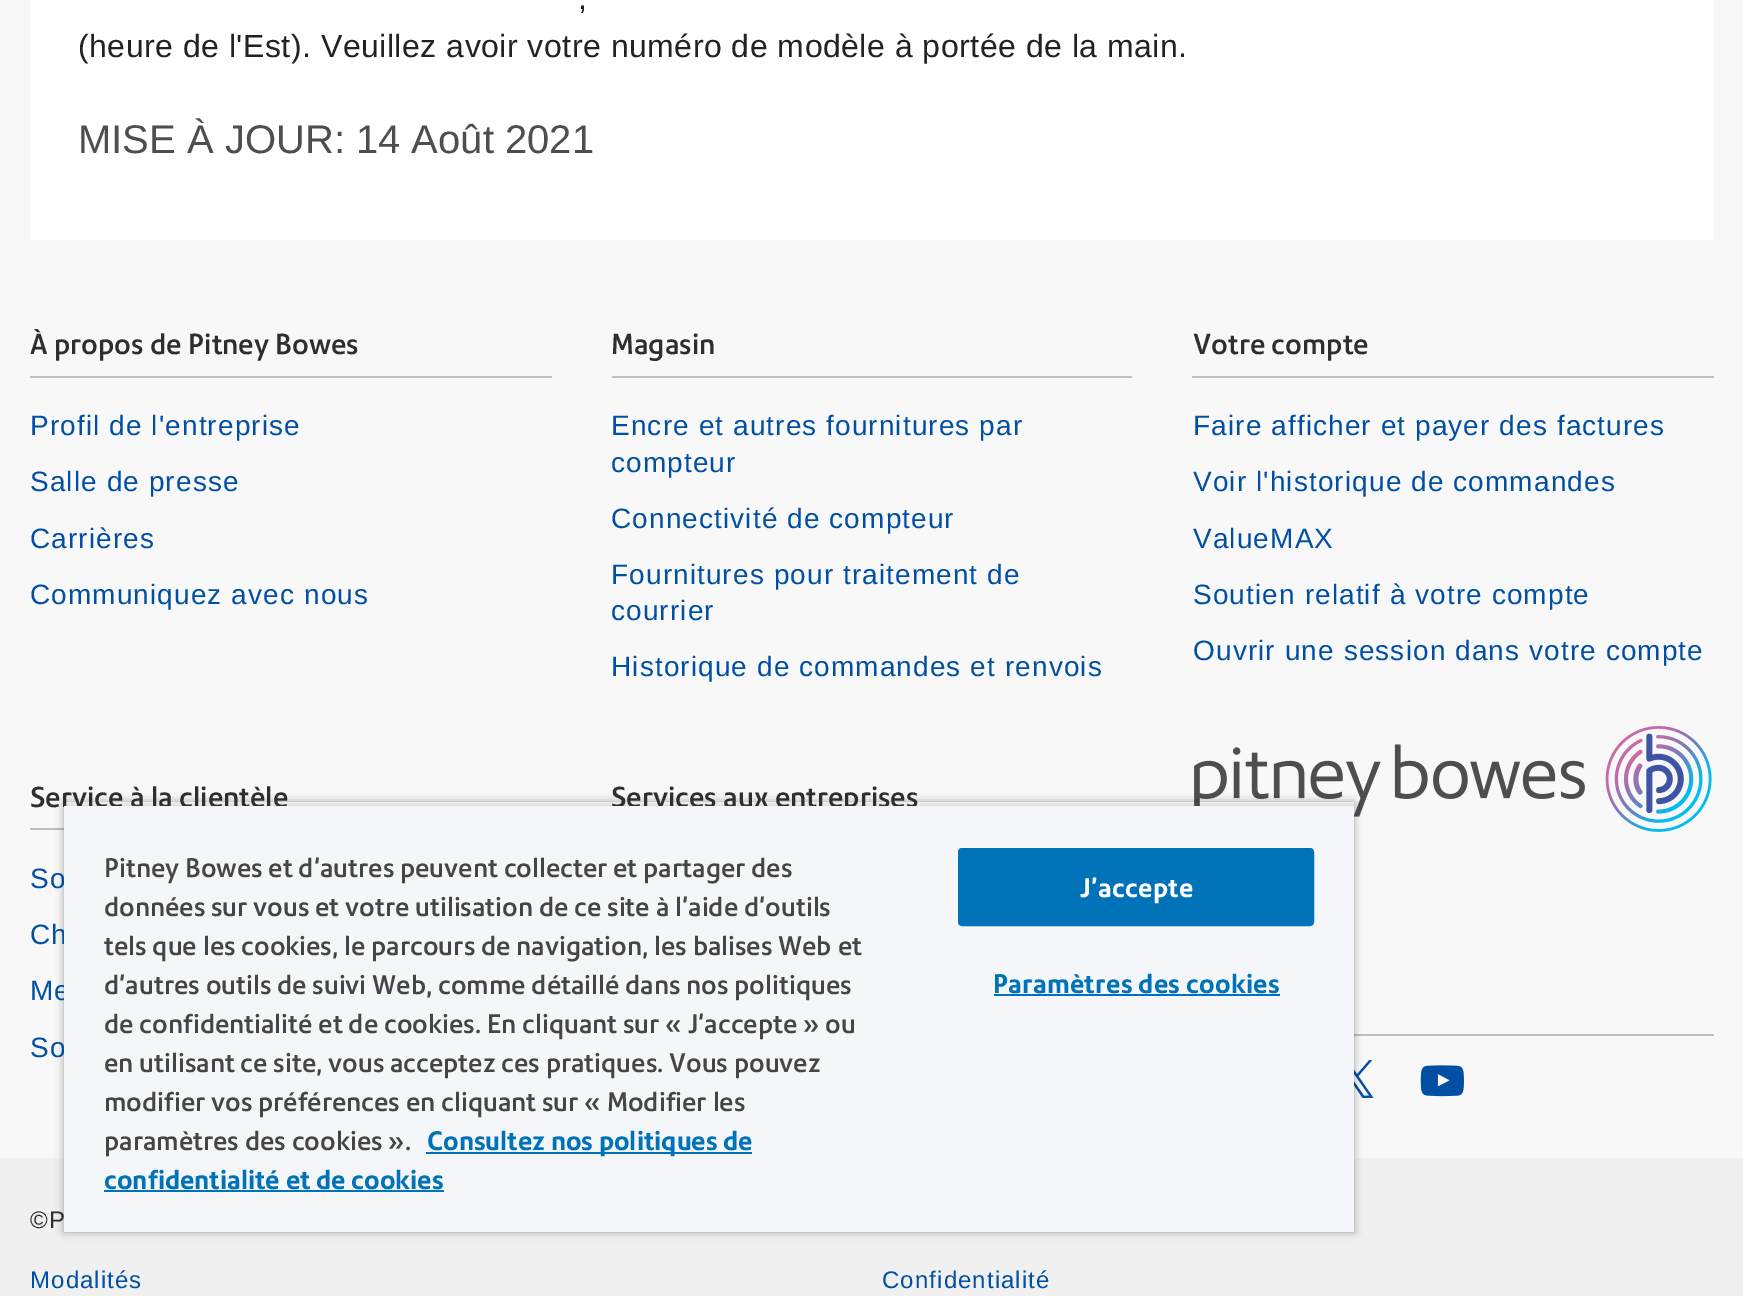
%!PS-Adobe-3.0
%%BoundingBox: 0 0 1743 1296
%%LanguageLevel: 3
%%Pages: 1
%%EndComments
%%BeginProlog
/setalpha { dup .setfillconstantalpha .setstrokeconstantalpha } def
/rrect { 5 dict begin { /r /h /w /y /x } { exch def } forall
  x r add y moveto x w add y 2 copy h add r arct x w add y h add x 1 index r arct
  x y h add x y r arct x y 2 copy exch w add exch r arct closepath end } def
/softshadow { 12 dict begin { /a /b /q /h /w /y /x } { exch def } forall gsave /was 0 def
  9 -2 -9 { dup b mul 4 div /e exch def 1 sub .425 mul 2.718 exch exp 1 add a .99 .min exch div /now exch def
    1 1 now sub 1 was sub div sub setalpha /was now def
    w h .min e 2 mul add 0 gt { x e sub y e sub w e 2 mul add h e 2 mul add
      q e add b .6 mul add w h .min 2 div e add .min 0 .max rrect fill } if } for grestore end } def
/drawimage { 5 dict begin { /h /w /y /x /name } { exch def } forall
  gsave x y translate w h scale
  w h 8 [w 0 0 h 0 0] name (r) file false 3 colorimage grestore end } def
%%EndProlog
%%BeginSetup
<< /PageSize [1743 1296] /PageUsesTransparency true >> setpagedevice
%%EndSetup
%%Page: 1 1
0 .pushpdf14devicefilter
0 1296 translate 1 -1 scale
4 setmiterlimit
0.973 setgray
0 0 1743 1296 rectfill
1 setgray
30 0 1684 240 rectfill
0.749 setgray
30 376 522 2 rectfill
612 376 520 2 rectfill
1192 376 522 2 rectfill
30 828 34 2 rectfill
(images/1.raw) 1194 725 518 107 drawimage
1354 1034 360 2 rectfill
(images/2.raw) 1354 1060 20 38 drawimage
(images/3.raw) 1420 1065 44 32 drawimage
0.941 setgray
0 1158 1743 138 rectfill
gsave
newpath 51 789 moveto 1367 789 lineto 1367 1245 lineto 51 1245 lineto closepath 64 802 moveto 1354 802 lineto 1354 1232 lineto 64 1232 lineto closepath eoclip newpath
0 setgray
64 802 1290 430 0 4 0.35 softshadow
grestore
gsave
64 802 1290 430 rectclip
0 setgray
64 806 1290 426 0 4 0.2 softshadow
grestore
/LiberationSans-Regular [32 0 0 -32 0 0] selectfont
0.133 setgray
578 9 moveto 0.5 0 (,) ashow
78 57 moveto 0.5 0 (\(heure de l'Est\). Veuillez avoir votre numéro de modèle à portée de la main.) ashow
/LiberationSans-Regular [40 0 0 -40 0 0] selectfont
0.306 setgray
78 153 moveto (MISE À JOUR: 14 Août 2021) show
/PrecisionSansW-Medium [28 0 0 -28 0 0] selectfont
0.18 setgray
30 354 moveto (À propos de Pitney Bowes) show
/LiberationSans-Regular [28 0 0 -28 0 0] selectfont
0 0.31 0.639 setrgbcolor
30 435 moveto 1.1 0 (Profil de l'entreprise) ashow
30 491 moveto 1.1 0 (Salle de presse) ashow
30 548 moveto 1.1 0 (Carrières) ashow
30 604 moveto 1.1 0 (Communiquez avec nous) ashow
/PrecisionSansW-Medium [28 0 0 -28 0 0] selectfont
0.18 setgray
611 354 moveto (Magasin) show
/LiberationSans-Regular [28 0 0 -28 0 0] selectfont
0 0.31 0.639 setrgbcolor
611 435 moveto 1.1 0 (Encre et autres fournitures par) ashow
611 472 moveto 1.1 0 (compteur) ashow
611 528 moveto 1.1 0 (Connectivité de compteur) ashow
611 584 moveto 1.1 0 (Fournitures pour traitement de) ashow
611 620 moveto 1.1 0 (courrier) ashow
611 676 moveto 1.1 0 (Historique de commandes et renvois) ashow
/PrecisionSansW-Medium [28 0 0 -28 0 0] selectfont
0.18 setgray
1193 354 moveto (Votre compte) show
/LiberationSans-Regular [28 0 0 -28 0 0] selectfont
0 0.31 0.639 setrgbcolor
1193 435 moveto 1.1 0 (Faire afficher et payer des factures) ashow
1193 491 moveto 1.1 0 (Voir l'historique de commandes) ashow
1193 548 moveto 1.1 0 (ValueMAX) ashow
1193 604 moveto 1.1 0 (Soutien relatif à votre compte) ashow
1193 660 moveto 1.1 0 (Ouvrir une session dans votre compte) ashow
/PrecisionSansW-Medium [28 0 0 -28 0 0] selectfont
0.18 setgray
30 807 moveto (Service à la clientèle) show
/LiberationSans-Regular [28 0 0 -28 0 0] selectfont
0 0.31 0.639 setrgbcolor
30 888 moveto 1.1 0 (So) ashow
30 944 moveto 1.1 0 (Ch) ashow
30 1000 moveto 1.1 0 (Me) ashow
30 1057 moveto 1.1 0 (So) ashow
/PrecisionSansW-Medium [28 0 0 -28 0 0] selectfont
0.18 setgray
611 807 moveto (Services aux entreprises) show
/LiberationSans-Regular [24 0 0 -24 0 0] selectfont
30 1228 moveto 1.1 0 (©P) ashow
0 0.31 0.639 setrgbcolor
30 1288 moveto 1.1 0 (Modalités) ashow
882 1288 moveto 1.1 0 (Confidentialité) ashow
0.961 0.965 0.98 setrgbcolor
64 806 1290 426 rectfill
/PrecisionSansW-Medium [26 0 0 -26 0 0] selectfont
0.271 setgray
104 877 moveto (Pitney Bowes et d'autres peuvent collecter et partager des) show
104 916 moveto (données sur vous et votre utilisation de ce site à l'aide d'outils) show
104 955 moveto (tels que les cookies, le parcours de navigation, les balises Web et) show
104 994 moveto (d'autres outils de suivi Web, comme détaillé dans nos politiques) show
104 1033 moveto (de confidentialité et de cookies. En cliquant sur « J'accepte » ou) show
104 1072 moveto (en utilisant ce site, vous acceptez ces pratiques. Vous pouvez) show
104 1111 moveto (modifier vos préférences en cliquant sur « Modifier les) show
104 1150 moveto (paramètres des cookies ».) show
0 0.447 0.722 setrgbcolor
426 1152 326 2 rectfill
/PrecisionSansW-Bold [26 0 0 -26 0 0] selectfont
427 1150 moveto (Consultez nos politiques de) show
104 1189 moveto (confidentialité et de cookies) show
104 1190 340 2 rectfill
959 849 354 76 3 rrect gsave fill grestore
2 setlinewidth
stroke
1 setgray
1080 897 moveto 0.25 0 (J’accepte) ashow
0 0.447 0.722 setrgbcolor
993 993 moveto 0.25 0 (Paramètres des cookies) ashow
994 994 286 2 rectfill
.poppdf14devicefilter showpage
%%EOF
